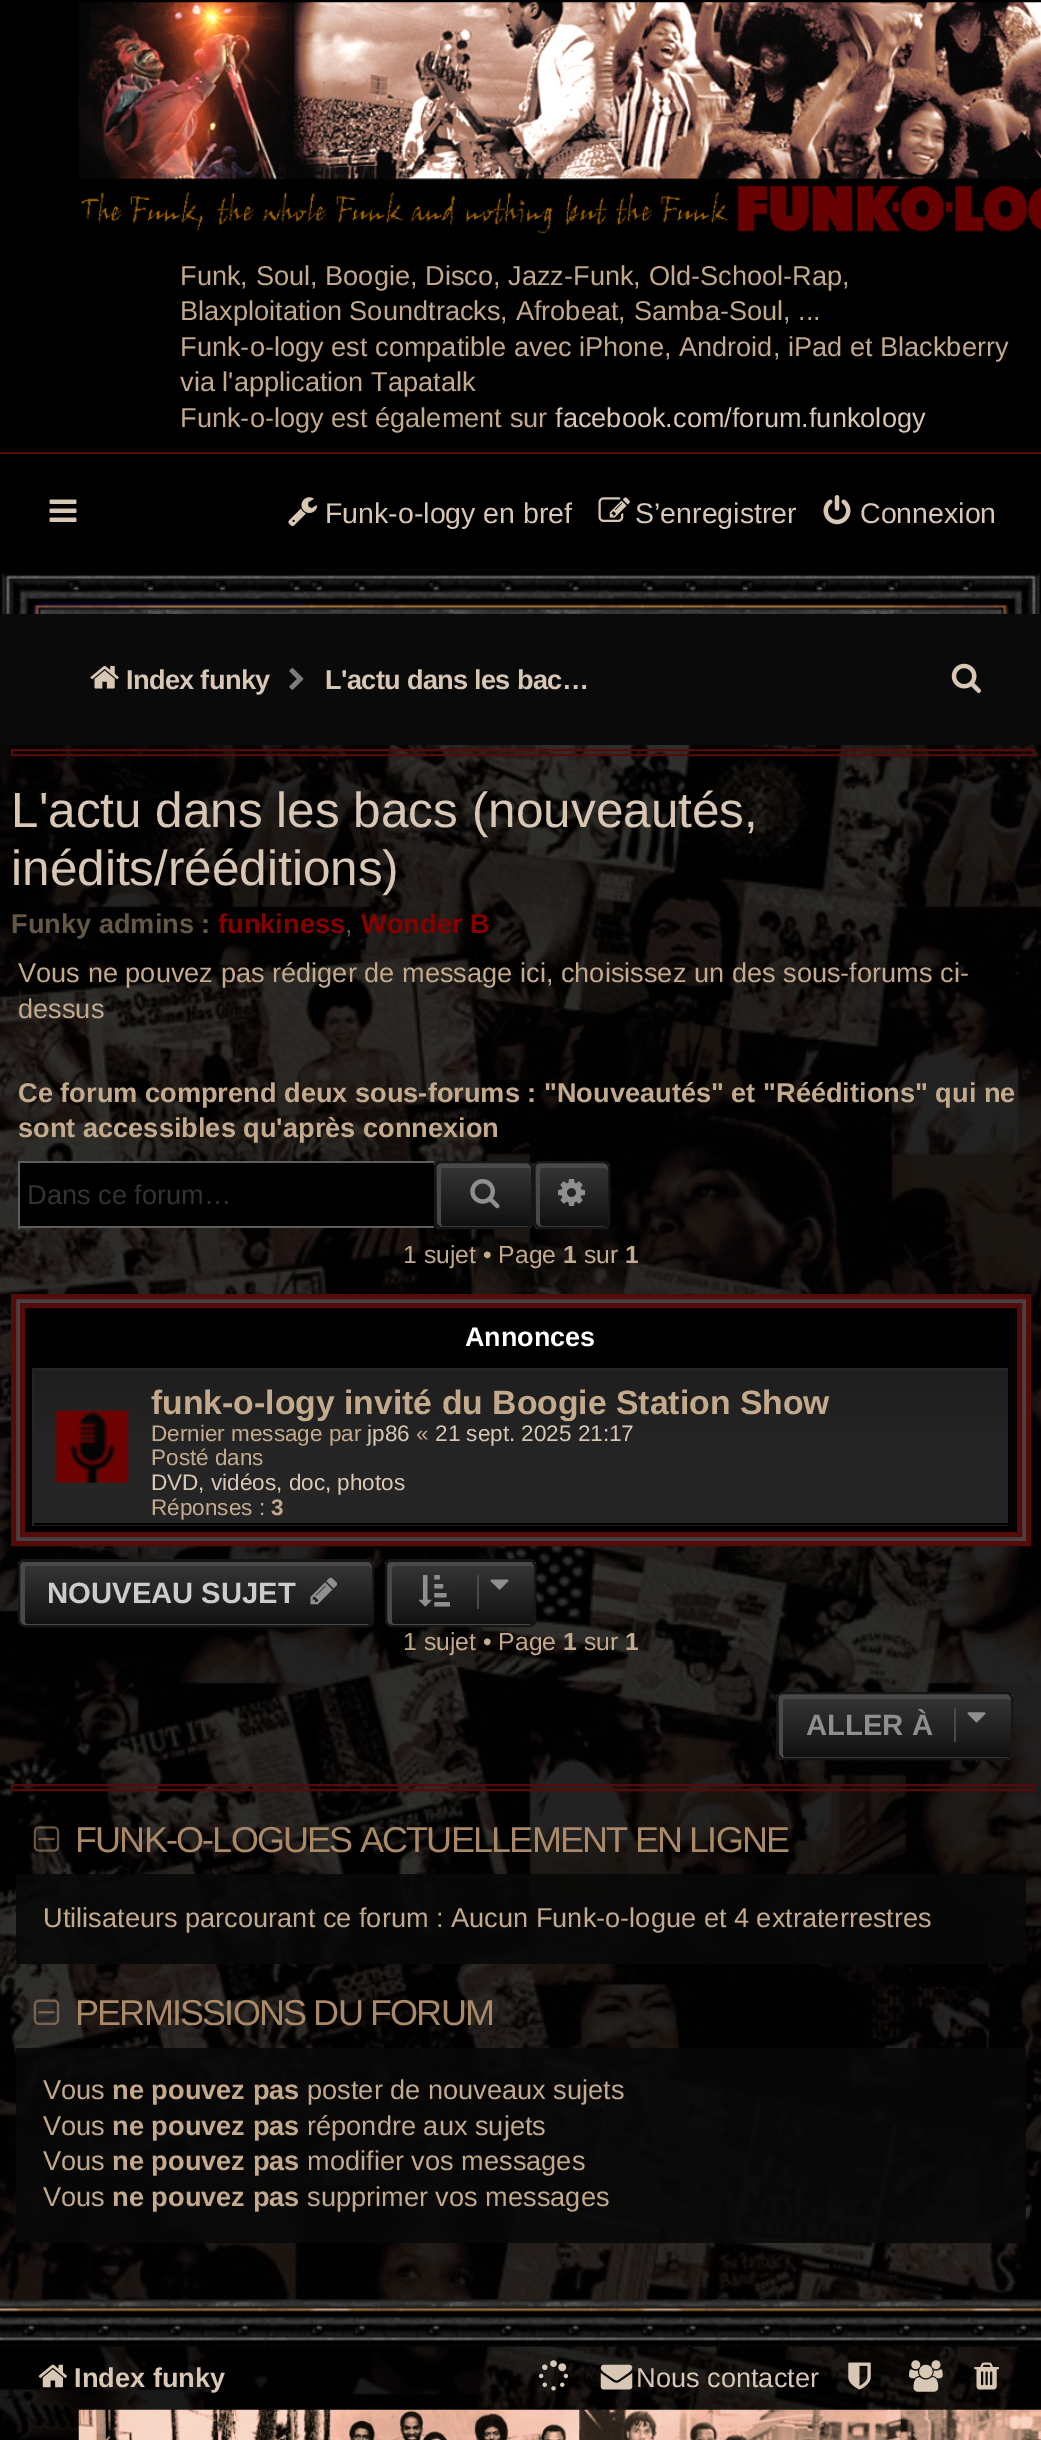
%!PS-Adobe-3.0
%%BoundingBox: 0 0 1041 2440
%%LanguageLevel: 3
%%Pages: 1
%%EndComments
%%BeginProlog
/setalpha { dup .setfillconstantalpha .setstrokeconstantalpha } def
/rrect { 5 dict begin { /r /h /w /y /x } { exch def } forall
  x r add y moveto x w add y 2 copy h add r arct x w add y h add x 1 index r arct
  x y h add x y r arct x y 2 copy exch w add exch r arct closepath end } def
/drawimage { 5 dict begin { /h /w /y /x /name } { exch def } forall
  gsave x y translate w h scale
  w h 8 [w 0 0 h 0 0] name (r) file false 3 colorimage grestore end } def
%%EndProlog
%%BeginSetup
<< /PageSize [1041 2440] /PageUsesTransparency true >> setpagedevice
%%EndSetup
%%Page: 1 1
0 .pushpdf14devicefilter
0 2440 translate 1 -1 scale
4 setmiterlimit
1 setgray
0 0 1041 2440 rectfill
(images/1.raw) 0 569 1041 1871 drawimage
0.85 setalpha
0 setgray
0 569 1041 45 rectfill
1 setalpha
0 0 1041 452 rectfill
(images/2.raw) 78 2 963 232 drawimage
0 454 1041 115 rectfill
0.337 0.043 0.043 setrgbcolor
0 452 1041 2 rectfill
(images/3.raw) 49 499 28 23 drawimage
(images/4.raw) 288 497 30 30 drawimage
(images/5.raw) 598 497 32 25 drawimage
(images/6.raw) 823 495 28 30 drawimage
0.9 setalpha
0 setgray
0 569 1041 45 rectfill
1 setalpha
(images/7.raw) 1 569 1040 45 drawimage
0.039 setgray
0 614 1041 131 rectfill
(images/8.raw) 90 666 29 23 drawimage
(images/9.raw) 289 667 15 23 drawimage
(images/10.raw) 951 663 30 30 drawimage
0.8 setalpha
0 setgray
0 745 1041 1602 rectfill
1 setalpha
(images/11.raw) 0 2299 1041 48 drawimage
0.337 0.043 0.043 setrgbcolor
2 setlinewidth
12 750 1022 5 rectstroke
0 setgray
20 1163 414 63 rectfill
0.365 setgray
18 1161 416 2 rectfill
18 1226 416 2 rectfill
18 1161 2 68 rectfill
gsave
434 1161 99 68 7 rrect clip newpath
gsave newpath 434 1163 moveto 533 1163 lineto 533 1226 lineto 434 1226 lineto closepath clip newpath
<< /ShadingType 2 /ColorSpace /DeviceRGB /Coords [484 1163 484 1226] /Extend [true true] /Function << /FunctionType 2 /Domain [0 1] /C0 [0.216 0.216 0.216] /C1 [0.067 0.067 0.067] /N 1 >> >> shfill grestore
gsave newpath 434 1226 moveto 533 1226 lineto 533 1229 lineto 434 1229 lineto closepath clip newpath
<< /ShadingType 2 /ColorSpace /DeviceRGB /Coords [484 1226 484 1289] /Extend [true true] /Function << /FunctionType 2 /Domain [0 1] /C0 [0.216 0.216 0.216] /C1 [0.067 0.067 0.067] /N 1 >> >> shfill grestore
grestore
0.286 setgray
newpath 443 1168 moveto 529 1168 lineto 530 1168 531 1169 531 1170 curveto 531 1168 lineto 531 1165 529 1163 526 1163 curveto 442 1163 lineto 439 1163 437 1165 437 1168 curveto 437 1221 lineto 437 1224 439 1226 442 1226 curveto 443 1226 lineto 442 1226 441 1225 441 1224 curveto 441 1170 lineto 441 1169 442 1168 443 1168 curveto closepath fill
0.086 setgray
435 1162 97 66 6 rrect stroke
(images/12.raw) 470 1179 30 30 drawimage
gsave
533 1161 77 68 7 rrect clip newpath
gsave newpath 533 1163 moveto 610 1163 lineto 610 1226 lineto 533 1226 lineto closepath clip newpath
<< /ShadingType 2 /ColorSpace /DeviceRGB /Coords [572 1163 572 1226] /Extend [true true] /Function << /FunctionType 2 /Domain [0 1] /C0 [0.216 0.216 0.216] /C1 [0.067 0.067 0.067] /N 1 >> >> shfill grestore
gsave newpath 533 1226 moveto 610 1226 lineto 610 1229 lineto 533 1229 lineto closepath clip newpath
<< /ShadingType 2 /ColorSpace /DeviceRGB /Coords [572 1226 572 1289] /Extend [true true] /Function << /FunctionType 2 /Domain [0 1] /C0 [0.216 0.216 0.216] /C1 [0.067 0.067 0.067] /N 1 >> >> shfill grestore
grestore
0.286 setgray
newpath 542 1168 moveto 605 1168 lineto 606 1168 608 1169 608 1170 curveto 608 1168 lineto 608 1165 606 1163 603 1163 curveto 541 1163 lineto 538 1163 536 1165 536 1168 curveto 536 1221 lineto 536 1224 538 1226 541 1226 curveto 542 1226 lineto 541 1226 540 1225 540 1224 curveto 540 1170 lineto 540 1169 541 1168 542 1168 curveto closepath fill
0.086 setgray
534 1162 75 66 6 rrect stroke
(images/13.raw) 558 1179 27 27 drawimage
0.267 setgray
newpath 13.5 1296.5 moveto 1028.5 1296.5 lineto 1028.5 1543.5 lineto 13.5 1543.5 lineto closepath gsave fill grestore
0.337 0.043 0.043 setrgbcolor
5 setlinewidth
stroke
0 setgray
newpath 22.5 1305.5 moveto 1019.5 1305.5 lineto 1019.5 1534.5 lineto 22.5 1534.5 lineto closepath gsave fill grestore
0.337 0.043 0.043 setrgbcolor
stroke
0.145 setgray
34 1368 974 2 rectfill
gsave newpath 34 1370 moveto 1008 1370 lineto 1008 1523 lineto 34 1523 lineto closepath clip newpath
<< /ShadingType 2 /ColorSpace /DeviceRGB /Coords [521 1370 521 1523] /Extend [true true] /Function << /FunctionType 3 /Domain [0 1] /Functions [<< /FunctionType 2 /Domain [0 1] /C0 [0.118 0.118 0.118] /C1 [0.145 0.145 0.145] /N 1 >> << /FunctionType 2 /Domain [0 1] /C0 [0.145 0.145 0.145] /C1 [0.145 0.145 0.145] /N 1 >>] /Bounds [0.51] /Encode [0 1 0 1] >> >> shfill grestore
gsave newpath 32 1525 moveto 1010 1525 lineto 1010 1526 lineto 32 1526 lineto closepath clip newpath
<< /ShadingType 2 /ColorSpace /DeviceRGB /Coords [521 1523 521 1676] /Extend [true true] /Function << /FunctionType 3 /Domain [0 1] /Functions [<< /FunctionType 2 /Domain [0 1] /C0 [0.118 0.118 0.118] /C1 [0.145 0.145 0.145] /N 1 >> << /FunctionType 2 /Domain [0 1] /C0 [0.145 0.145 0.145] /C1 [0.145 0.145 0.145] /N 1 >>] /Bounds [0.51] /Encode [0 1 0 1] >> >> shfill grestore
0 setgray
1008 1525 2 1 rectfill
0.145 setgray
32 1368 2 158 rectfill
(images/14.raw) 56 1410 73 73 drawimage
gsave
18 1559 356 68 7 rrect clip newpath
gsave newpath 18 1559 moveto 374 1559 lineto 374 1562 lineto 18 1562 lineto closepath clip newpath
<< /ShadingType 2 /ColorSpace /DeviceRGB /Coords [196 1499 196 1562] /Extend [true true] /Function << /FunctionType 2 /Domain [0 1] /C0 [0.216 0.216 0.216] /C1 [0.067 0.067 0.067] /N 1 >> >> shfill grestore
gsave newpath 18 1562 moveto 374 1562 lineto 374 1625 lineto 18 1625 lineto closepath clip newpath
<< /ShadingType 2 /ColorSpace /DeviceRGB /Coords [196 1562 196 1625] /Extend [true true] /Function << /FunctionType 2 /Domain [0 1] /C0 [0.216 0.216 0.216] /C1 [0.067 0.067 0.067] /N 1 >> >> shfill grestore
grestore
0.286 setgray
newpath 27 1566 moveto 369 1566 lineto 370 1566 371 1567 371 1568 curveto 371 1567 lineto 371 1564 369 1562 366 1562 curveto 25 1562 lineto 22 1562 20 1564 20 1567 curveto 20 1620 lineto 20 1623 22 1625 25 1625 curveto 366 1625 lineto 367 1625 368 1625 369 1624 curveto 27 1624 lineto 26 1624 25 1623 25 1622 curveto 25 1568 lineto 25 1567 26 1566 27 1566 curveto closepath fill
0.086 setgray
2 setlinewidth
19 1560 354 66 6 rrect stroke
(images/15.raw) 310 1577 28 28 drawimage
gsave
385 1559 151 68 7 rrect clip newpath
gsave newpath 385 1559 moveto 536 1559 lineto 536 1562 lineto 385 1562 lineto closepath clip newpath
<< /ShadingType 2 /ColorSpace /DeviceRGB /Coords [460 1499 460 1562] /Extend [true true] /Function << /FunctionType 2 /Domain [0 1] /C0 [0.216 0.216 0.216] /C1 [0.067 0.067 0.067] /N 1 >> >> shfill grestore
gsave newpath 385 1562 moveto 536 1562 lineto 536 1625 lineto 385 1625 lineto closepath clip newpath
<< /ShadingType 2 /ColorSpace /DeviceRGB /Coords [460 1562 460 1625] /Extend [true true] /Function << /FunctionType 2 /Domain [0 1] /C0 [0.216 0.216 0.216] /C1 [0.067 0.067 0.067] /N 1 >> >> shfill grestore
grestore
0.286 setgray
newpath 394 1566 moveto 531 1566 lineto 532 1566 533 1567 533 1568 curveto 533 1567 lineto 533 1564 531 1562 528 1562 curveto 392 1562 lineto 389 1562 387 1564 387 1567 curveto 387 1620 lineto 387 1623 389 1625 392 1625 curveto 528 1625 lineto 529 1625 530 1625 531 1624 curveto 394 1624 lineto 393 1624 392 1623 392 1622 curveto 392 1568 lineto 392 1567 393 1566 394 1566 curveto closepath fill
0.086 setgray
386 1560 149 66 6 rrect stroke
(images/16.raw) 419 1575 31 32 drawimage
0.286 setgray
477 1575 2 34 rectfill
(images/17.raw) 490 1579 19 11 drawimage
gsave
776 1692 237 68 7 rrect clip newpath
gsave newpath 776 1694 moveto 1013 1694 lineto 1013 1757 lineto 776 1757 lineto closepath clip newpath
<< /ShadingType 2 /ColorSpace /DeviceRGB /Coords [894 1694 894 1757] /Extend [true true] /Function << /FunctionType 2 /Domain [0 1] /C0 [0.216 0.216 0.216] /C1 [0.067 0.067 0.067] /N 1 >> >> shfill grestore
gsave newpath 776 1757 moveto 1013 1757 lineto 1013 1760 lineto 776 1760 lineto closepath clip newpath
<< /ShadingType 2 /ColorSpace /DeviceRGB /Coords [894 1757 894 1820] /Extend [true true] /Function << /FunctionType 2 /Domain [0 1] /C0 [0.216 0.216 0.216] /C1 [0.067 0.067 0.067] /N 1 >> >> shfill grestore
grestore
newpath 785 1699 moveto 1008 1699 lineto 1009 1699 1010 1700 1010 1701 curveto 1010 1699 lineto 1010 1696 1008 1694 1005 1694 curveto 784 1694 lineto 781 1694 779 1696 779 1699 curveto 779 1752 lineto 779 1755 781 1757 784 1757 curveto 785 1757 lineto 784 1757 783 1756 783 1755 curveto 783 1701 lineto 783 1700 784 1699 785 1699 curveto closepath fill
0.086 setgray
777 1693 235 66 6 rrect stroke
0.286 setgray
954 1708 2 34 rectfill
(images/18.raw) 967 1712 19 11 drawimage
0.337 0.043 0.043 setrgbcolor
12 1785 1022 5 rectstroke
(images/19.raw) 33 1826 27 26 drawimage
0.9 setalpha
0.031 setgray
16 1874 1010 90 rectfill
1 setalpha
(images/20.raw) 33 1999 27 26 drawimage
0.9 setalpha
16 2048 1010 195 rectfill
0.85 setalpha
0 setgray
0 2347 1041 93 rectfill
1 setalpha
(images/21.raw) 38 2364 29 24 drawimage
(images/22.raw) 538 2360 31 31 drawimage
(images/23.raw) 600 2364 33 26 drawimage
(images/24.raw) 848 2362 23 28 drawimage
(images/25.raw) 909 2360 34 32 drawimage
(images/26.raw) 974 2362 25 28 drawimage
(images/27.raw) 78 2409 963 31 drawimage
/LiberationSans-Regular [27.2 0 0 -27.2 0 0] selectfont
0.769 0.667 0.553 setrgbcolor
180 285 moveto (Funk, Soul, Boogie, Disco, Jazz-Funk, Old-School-Rap,) show
180 320 moveto (Blaxploitation Soundtracks, Afrobeat, Samba-Soul, ...) show
180 356 moveto (Funk-o-logy est compatible avec iPhone, Android, iPad et Blackberry) show
180 391 moveto (via l'application Tapatalk) show
180 427 moveto (Funk-o-logy est également sur) show
0.847 0.78 0.706 setrgbcolor
555 427 moveto (facebook.com/forum.funkology) show
/LiberationSans-Regular [28.5 0 0 -28.5 0 0] selectfont
325 523 moveto (Funk-o-logy en bref) show
635 523 moveto (S’enregistrer) show
860 523 moveto (Connexion) show
/LiberationSans-Bold [27.2 0 0 -27.2 0 0] selectfont
126 689 moveto -0.7 0 (Index funky) ashow
325 689 moveto -0.7 0 (L'actu dans les bac…) ashow
/LiberationSans-Regular [49.5 0 0 -49.5 0 0] selectfont
11 827 moveto (L'actu dans les bacs \(nouveautés,) show
11 885 moveto (inédits/rééditions\)) show
/LiberationSans-Bold [27.2 0 0 -27.2 0 0] selectfont
0.388 0.341 0.275 setrgbcolor
11 933 moveto (Funky admins :) show
0.525 0 0 setrgbcolor
218 933 moveto (funkiness) show
/LiberationSans-Regular [27.2 0 0 -27.2 0 0] selectfont
0.388 0.341 0.275 setrgbcolor
345 933 moveto (,) show
/LiberationSans-Bold [27.2 0 0 -27.2 0 0] selectfont
0.525 0 0 setrgbcolor
361 933 moveto (Wonder B) show
/LiberationSans-Regular [27.2 0 0 -27.2 0 0] selectfont
0.769 0.667 0.553 setrgbcolor
18 982 moveto (Vous ne pouvez pas rédiger de message ici, choisissez un des sous-forums ci-) show
18 1018 moveto (dessus) show
/LiberationSans-Bold [27.2 0 0 -27.2 0 0] selectfont
18 1102 moveto (Ce forum comprend deux sous-forums : "Nouveautés" et "Rééditions" qui ne) show
18 1137 moveto (sont accessibles qu'après connexion) show
/LiberationSans-Regular [27.2 0 0 -27.2 0 0] selectfont
0.2 setgray
27 1204 moveto (Dans ce forum…) show
/LiberationSans-Regular [24.75 0 0 -24.75 0 0] selectfont
0.769 0.667 0.553 setrgbcolor
403 1263 moveto (1 sujet • Page) show
/LiberationSans-Bold [24.75 0 0 -24.75 0 0] selectfont
563 1263 moveto (1) show
/LiberationSans-Regular [24.75 0 0 -24.75 0 0] selectfont
584 1263 moveto (sur) show
/LiberationSans-Bold [24.75 0 0 -24.75 0 0] selectfont
625 1263 moveto (1) show
/LiberationSans-Bold [27 0 0 -27 0 0] selectfont
1 setgray
465 1346 moveto (Annonces) show
/LiberationSans-Bold [33.75 0 0 -33.75 0 0] selectfont
0.769 0.667 0.553 setrgbcolor
151 1414 moveto (funk-o-logy invité du Boogie Station Show) show
/LiberationSans-Regular [22.5 0 0 -22.5 0 0] selectfont
151 1441 moveto (Dernier message par) show
0.847 0.78 0.706 setrgbcolor
367 1441 moveto (jp86) show
0.769 0.667 0.553 setrgbcolor
416 1441 moveto («) show
0.847 0.78 0.706 setrgbcolor
435 1441 moveto (21 sept. 2025 21:17) show
0.769 0.667 0.553 setrgbcolor
151 1465 moveto (Posté dans) show
0.847 0.78 0.706 setrgbcolor
151 1490 moveto (DVD, vidéos, doc, photos) show
0.769 0.667 0.553 setrgbcolor
151 1515 moveto (Réponses :) show
/LiberationSans-Bold [22.5 0 0 -22.5 0 0] selectfont
271 1515 moveto (3) show
/LiberationSans-Bold [29.25 0 0 -29.25 0 0] selectfont
0.8 setgray
47 1603 moveto (NOUVEAU SUJET) show
/LiberationSans-Regular [24.75 0 0 -24.75 0 0] selectfont
0.769 0.667 0.553 setrgbcolor
403 1650 moveto (1 sujet • Page) show
/LiberationSans-Bold [24.75 0 0 -24.75 0 0] selectfont
563 1650 moveto (1) show
/LiberationSans-Regular [24.75 0 0 -24.75 0 0] selectfont
584 1650 moveto (sur) show
/LiberationSans-Bold [24.75 0 0 -24.75 0 0] selectfont
625 1650 moveto (1) show
/LiberationSans-Bold [29.25 0 0 -29.25 0 0] selectfont
0.561 setgray
806 1735 moveto (ALLER À) show
/LiberationSans-Regular [36 0 0 -36 0 0] selectfont
0.667 0.537 0.412 setrgbcolor
75 1852 moveto -1.8 0 (FUNK-O-LOGUES ACTUELLEMENT EN LIGNE) ashow
/LiberationSans-Regular [27.2 0 0 -27.2 0 0] selectfont
0.769 0.667 0.553 setrgbcolor
43 1927 moveto (Utilisateurs parcourant ce forum : Aucun Funk-o-logue et 4 extraterrestres) show
/LiberationSans-Regular [36 0 0 -36 0 0] selectfont
0.667 0.537 0.412 setrgbcolor
75 2025 moveto -1.8 0 (PERMISSIONS DU FORUM) ashow
/LiberationSans-Regular [27.2 0 0 -27.2 0 0] selectfont
0.769 0.667 0.553 setrgbcolor
43 2099 moveto (Vous) show
/LiberationSans-Bold [27.2 0 0 -27.2 0 0] selectfont
112 2099 moveto (ne pouvez pas) show
/LiberationSans-Regular [27.2 0 0 -27.2 0 0] selectfont
307 2099 moveto (poster de nouveaux sujets) show
43 2135 moveto (Vous) show
/LiberationSans-Bold [27.2 0 0 -27.2 0 0] selectfont
112 2135 moveto (ne pouvez pas) show
/LiberationSans-Regular [27.2 0 0 -27.2 0 0] selectfont
307 2135 moveto (répondre aux sujets) show
43 2170 moveto (Vous) show
/LiberationSans-Bold [27.2 0 0 -27.2 0 0] selectfont
112 2170 moveto (ne pouvez pas) show
/LiberationSans-Regular [27.2 0 0 -27.2 0 0] selectfont
307 2170 moveto (modifier vos messages) show
43 2206 moveto (Vous) show
/LiberationSans-Bold [27.2 0 0 -27.2 0 0] selectfont
112 2206 moveto (ne pouvez pas) show
/LiberationSans-Regular [27.2 0 0 -27.2 0 0] selectfont
307 2206 moveto (supprimer vos messages) show
/LiberationSans-Bold [27.2 0 0 -27.2 0 0] selectfont
0.847 0.78 0.706 setrgbcolor
74 2387 moveto (Index funky) show
/LiberationSans-Regular [27.2 0 0 -27.2 0 0] selectfont
636 2387 moveto (Nous contacter) show
.poppdf14devicefilter showpage
%%EOF
